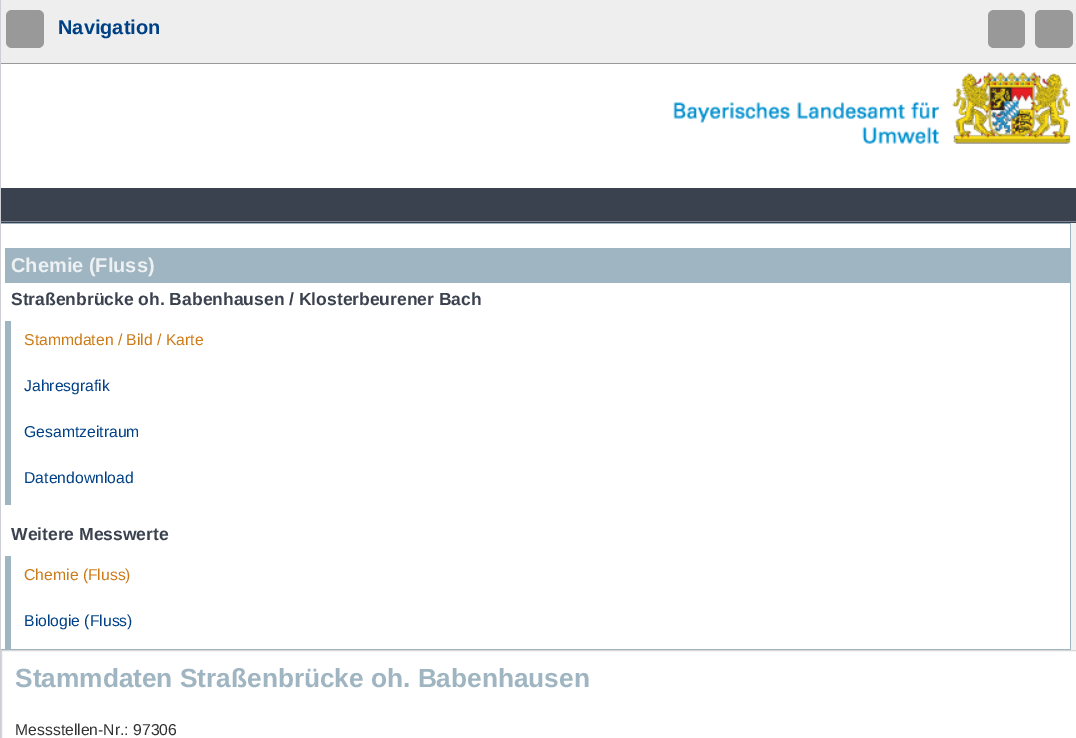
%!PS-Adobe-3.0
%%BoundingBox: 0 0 1076 738
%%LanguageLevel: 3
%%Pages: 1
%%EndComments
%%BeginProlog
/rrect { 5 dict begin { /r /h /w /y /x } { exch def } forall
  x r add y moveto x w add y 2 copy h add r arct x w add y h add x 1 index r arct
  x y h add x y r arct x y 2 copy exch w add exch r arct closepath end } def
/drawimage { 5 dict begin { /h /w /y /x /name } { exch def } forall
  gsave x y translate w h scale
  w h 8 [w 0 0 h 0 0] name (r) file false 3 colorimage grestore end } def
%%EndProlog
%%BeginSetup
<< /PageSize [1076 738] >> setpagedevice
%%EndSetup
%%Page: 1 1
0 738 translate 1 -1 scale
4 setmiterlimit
1 setgray
0 0 1076 738 rectfill
0.808 0.812 0.831 setrgbcolor
0 0 1 738 rectfill
0.933 setgray
1 0 1075 63 rectfill
0.6 setgray
1 63 1075 1 rectfill
6 10 38 38 6 rrect fill
988 10 37 38 6 rrect fill
1035 10 38 38 6 rrect fill
(images/1.raw) 673 72 398 72 drawimage
0.231 0.259 0.31 setrgbcolor
1 188 1075 35 rectfill
0.478 0.51 0.569 setrgbcolor
1 221 1075 1 rectfill
0.949 setgray
1071 223 5 427 rectfill
0.624 0.71 0.757 setrgbcolor
1 223 1070 1 rectfill
1070 223 1 427 rectfill
1 649 1070 1 rectfill
5 248 1065 35 rectfill
5 321 6 184 rectfill
5 556 6 93 rectfill
0.843 setgray
1.5 650.5 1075 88 rectstroke
/LiberationSans-Bold [20 0 0 -20 0 0] selectfont
0 0.255 0.522 setrgbcolor
58 34 moveto (Navigation) show
0.929 0.945 0.953 setrgbcolor
11 272 moveto (Chemie \(Fluss\)) show
/LiberationSans-Bold [17.5 0 0 -17.5 0 0] selectfont
0.231 0.259 0.31 setrgbcolor
11 305 moveto (Straßenbrücke oh. Babenhausen / Klosterbeurener Bach) show
/LiberationSans-Regular [15.75 0 0 -15.75 0 0] selectfont
0.8 0.482 0.09 setrgbcolor
24 345 moveto (Stammdaten / Bild / Karte) show
0 0.255 0.522 setrgbcolor
24 391 moveto (Jahresgrafik) show
24 437 moveto (Gesamtzeitraum) show
24 483 moveto (Datendownload) show
/LiberationSans-Bold [17.5 0 0 -17.5 0 0] selectfont
0.231 0.259 0.31 setrgbcolor
11 540 moveto (Weitere Messwerte) show
/LiberationSans-Regular [15.75 0 0 -15.75 0 0] selectfont
0.8 0.482 0.09 setrgbcolor
24 580 moveto (Chemie \(Fluss\)) show
0 0.255 0.522 setrgbcolor
24 626 moveto (Biologie \(Fluss\)) show
/LiberationSans-Bold [26.25 0 0 -26.25 0 0] selectfont
0.624 0.71 0.757 setrgbcolor
15 687 moveto (Stammdaten Straßenbrücke oh. Babenhausen) show
/LiberationSans-Regular [15.75 0 0 -15.75 0 0] selectfont
0.2 setgray
15 735 moveto (Messstellen-Nr.: 97306) show
showpage
%%EOF
